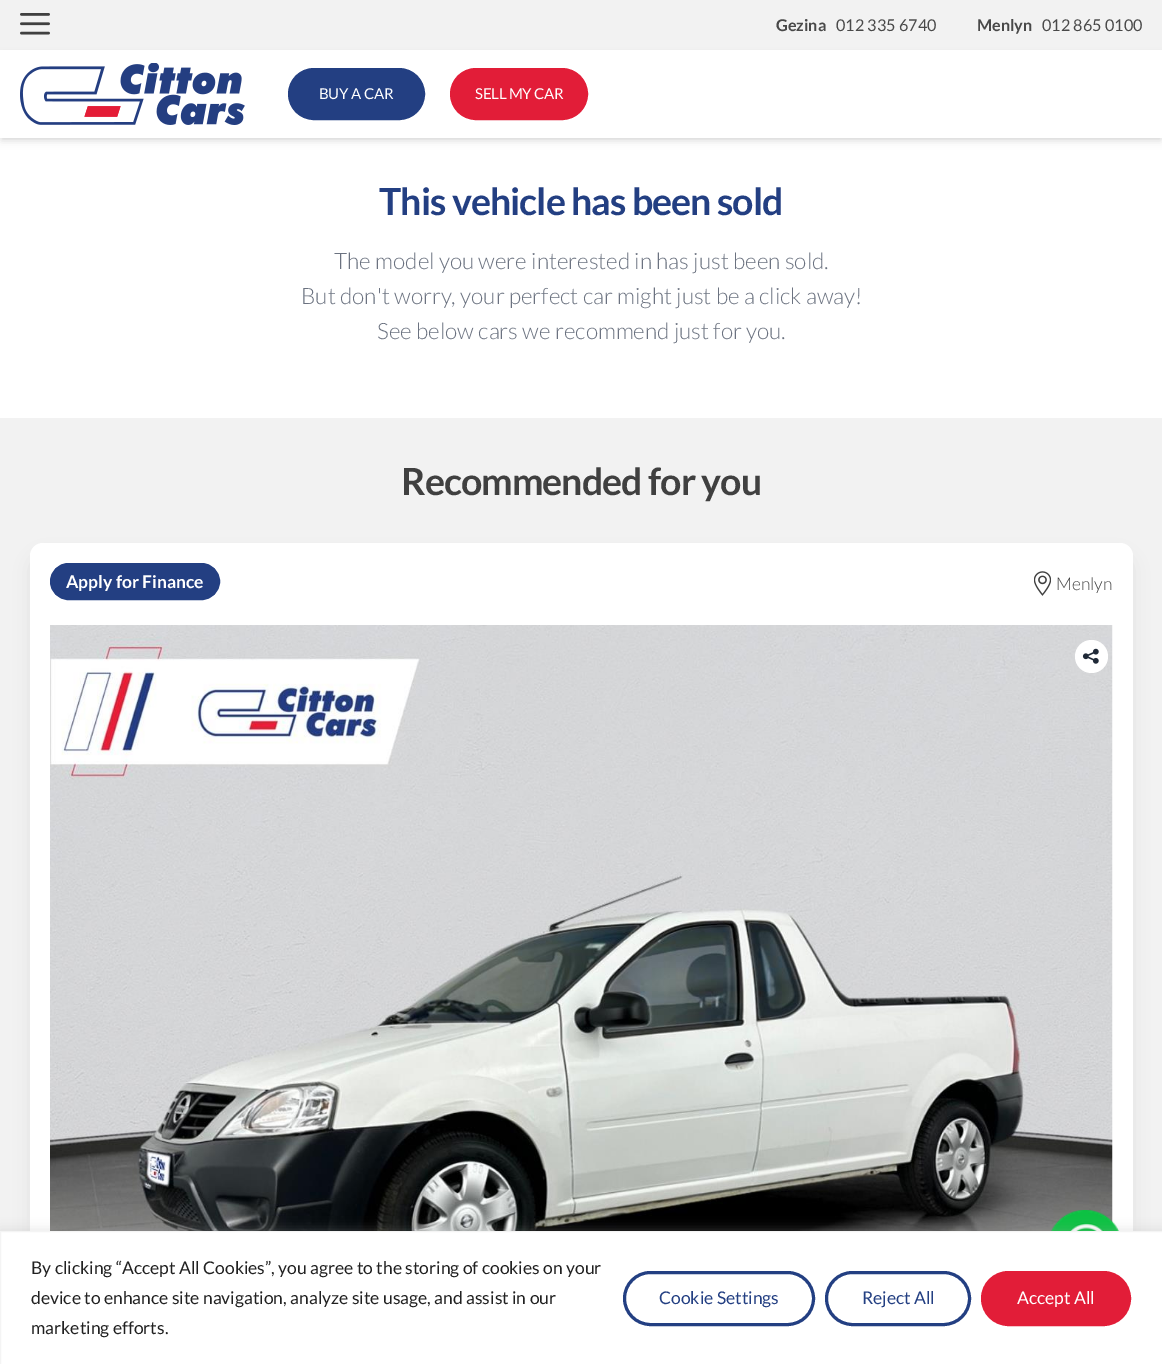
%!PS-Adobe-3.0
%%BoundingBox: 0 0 1162 1364
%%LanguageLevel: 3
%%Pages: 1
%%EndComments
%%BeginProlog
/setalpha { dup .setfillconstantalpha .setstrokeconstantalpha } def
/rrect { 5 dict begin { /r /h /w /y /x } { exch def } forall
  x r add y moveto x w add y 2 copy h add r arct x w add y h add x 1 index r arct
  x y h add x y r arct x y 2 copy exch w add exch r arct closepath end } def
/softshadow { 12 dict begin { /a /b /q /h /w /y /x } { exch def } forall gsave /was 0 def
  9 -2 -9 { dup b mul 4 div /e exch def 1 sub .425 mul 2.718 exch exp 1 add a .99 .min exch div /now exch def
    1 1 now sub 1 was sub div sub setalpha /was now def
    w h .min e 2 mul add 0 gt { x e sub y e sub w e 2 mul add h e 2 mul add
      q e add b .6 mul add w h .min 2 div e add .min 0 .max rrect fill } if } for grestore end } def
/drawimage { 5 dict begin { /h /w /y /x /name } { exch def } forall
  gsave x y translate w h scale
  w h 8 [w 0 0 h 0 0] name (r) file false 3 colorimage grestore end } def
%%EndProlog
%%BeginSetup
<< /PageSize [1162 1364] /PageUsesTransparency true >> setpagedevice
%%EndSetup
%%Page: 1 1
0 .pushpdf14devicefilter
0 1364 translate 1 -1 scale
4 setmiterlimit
0.949 setgray
0 0 1162 1364 rectfill
(images/1.raw) 20 13 30 22 drawimage
1 setgray
0 50 1162 368 rectfill
gsave
newpath 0 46 moveto 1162 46 lineto 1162 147 lineto 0 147 lineto closepath 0 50 moveto 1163 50 lineto 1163 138 lineto 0 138 lineto closepath eoclip newpath
0 setgray
3 55 1157 83 0 2.5 0.1 softshadow
grestore
gsave
newpath 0 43 moveto 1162 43 lineto 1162 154 lineto 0 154 lineto closepath 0 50 moveto 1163 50 lineto 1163 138 lineto 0 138 lineto closepath eoclip newpath
0 setgray
1 56 1160 85 0 4 0.1 softshadow
grestore
(images/2.raw) 20 63 225 62 drawimage
0.137 0.247 0.51 setrgbcolor
289.5 69.5 134 49 24.5 rrect gsave fill grestore
3 setlinewidth
stroke
0.886 0.114 0.22 setrgbcolor
451.5 69.5 135 49 24.5 rrect gsave fill grestore
stroke
0 setgray
34 559 1095 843 9 9.5 0.1 softshadow
1 setgray
30 543 1103 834 13 rrect fill
0.137 0.247 0.51 setrgbcolor
50.5 563.5 169 36 18 rrect gsave fill grestore
1 setlinewidth
stroke
(images/3.raw) 1034 571 17 25 drawimage
(images/4.raw) 50 625 1063 606 drawimage
1 setgray
newpath 1091.5 656.5 16.5 0 360 arc closepath fill
(images/5.raw) 1082 648 17 16 drawimage
(images/6.raw) 1051 1210 69 21 drawimage
0.675 0.671 0.671 setrgbcolor
0 1230 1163 134 0 6 0.3 softshadow
1 setgray
newpath 0.5 1231.5 moveto 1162.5 1231.5 lineto 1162.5 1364.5 lineto 0.5 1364.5 lineto closepath gsave fill grestore
0.957 setgray
stroke
0.137 0.247 0.51 setrgbcolor
3 setlinewidth
624.5 1272.5 189 52 26 rrect stroke
826.5 1272.5 143 52 26 rrect stroke
0.886 0.114 0.22 setrgbcolor
982.5 1272.5 147 52 26 rrect gsave fill grestore
stroke
/Lato-Bold [16.25 0 0 -16.25 0 0] selectfont
0.286 setgray
776 31 moveto (Gezina) show
/Lato-Regular [16.25 0 0 -16.25 0 0] selectfont
836 31 moveto (012 335 6740) show
/Lato-Bold [16.25 0 0 -16.25 0 0] selectfont
977 31 moveto (Menlyn) show
/Lato-Regular [16.25 0 0 -16.25 0 0] selectfont
1042 31 moveto (012 865 0100) show
/Lato-Regular [15 0 0 -15 0 0] selectfont
1 setgray
319 99 moveto -0.25 0 (BUY A CAR) ashow
475 99 moveto -0.25 0 (SELL MY CAR) ashow
/Lato-Bold [37.5 0 0 -37.5 0 0] selectfont
0.137 0.247 0.51 setrgbcolor
379 215 moveto -0.95 0 (This vehicle has been sold) ashow
/Lato-Light [22.5 0 0 -22.5 0 0] selectfont
0.42 0.447 0.502 setrgbcolor
334 269 moveto (The model you were interested in has just been sold.) show
301 304 moveto (But don't worry, your perfect car might just be a click away!) show
377 339 moveto (See below cars we recommend just for you.) show
/Lato-Bold [37.5 0 0 -37.5 0 0] selectfont
0.251 setgray
401 495 moveto -0.95 0 (Recommended for you) ashow
/Lato-Bold [17.5 0 0 -17.5 0 0] selectfont
1 setgray
66 588 moveto (Apply for Finance) show
/Lato-Light [17.5 0 0 -17.5 0 0] selectfont
0.251 setgray
1056 590 moveto (Menlyn) show
/Lato-Regular [17.5 0 0 -17.5 0 0] selectfont
0.129 setgray
31 1274 moveto (By clicking “Accept All Cookies”, you agree to the storing of cookies on your) show
31 1304 moveto (device to enhance site navigation, analyze site usage, and assist in our) show
31 1334 moveto (marketing efforts.) show
0.137 0.247 0.51 setrgbcolor
659 1304 moveto (Cookie Settings) show
862 1304 moveto (Reject All) show
1 setgray
1017 1304 moveto (Accept All) show
.poppdf14devicefilter showpage
%%EOF
